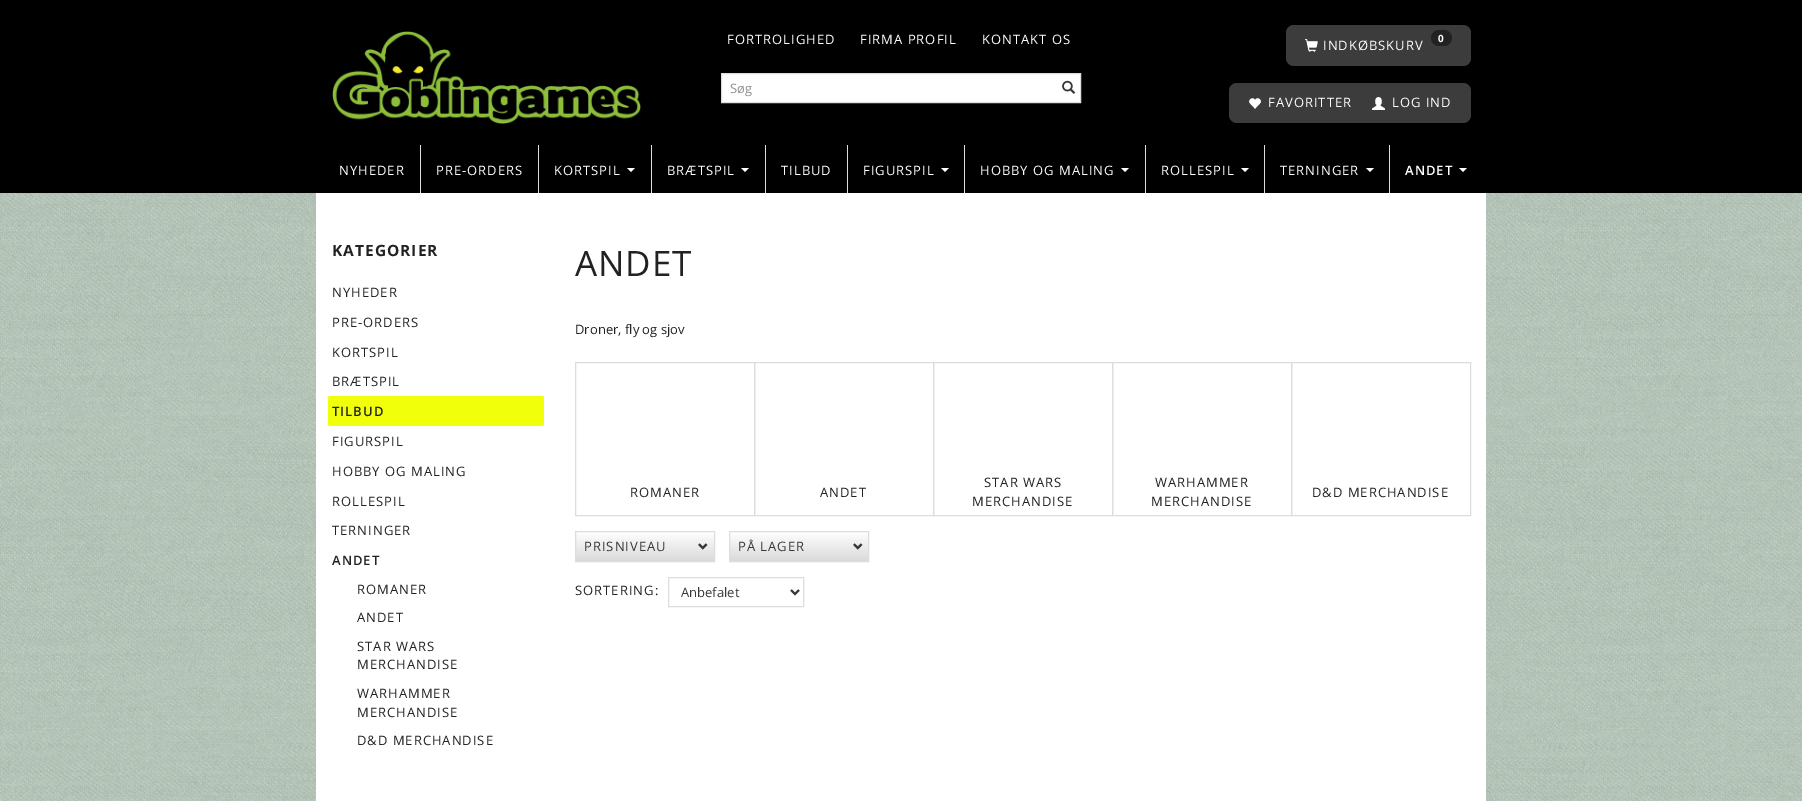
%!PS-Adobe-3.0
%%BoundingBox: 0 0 1802 801
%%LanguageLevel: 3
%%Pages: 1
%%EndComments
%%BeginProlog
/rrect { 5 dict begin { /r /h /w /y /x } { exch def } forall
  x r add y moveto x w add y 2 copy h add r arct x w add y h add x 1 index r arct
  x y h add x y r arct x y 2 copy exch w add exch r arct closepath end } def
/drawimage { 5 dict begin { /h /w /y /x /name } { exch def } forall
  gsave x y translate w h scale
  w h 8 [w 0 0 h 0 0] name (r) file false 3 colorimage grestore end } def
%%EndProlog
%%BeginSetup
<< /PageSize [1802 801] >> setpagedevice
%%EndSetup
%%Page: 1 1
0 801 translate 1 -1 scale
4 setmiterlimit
1 setgray
0 0 1802 801 rectfill
(images/1.raw) 0 193 1802 608 drawimage
0 setgray
0 0 1802 193 rectfill
(images/2.raw) 332 31 309 93 drawimage
1 setgray
newpath 721.5 73.5 moveto 1080.5 73.5 lineto 1080.5 102.5 lineto 721.5 102.5 lineto closepath gsave fill grestore
0.867 setgray
stroke
(images/3.raw) 1062 80 14 14 drawimage
0.235 setgray
1286 25 185 41 8 rrect fill
(images/4.raw) 1305 39 13 13 drawimage
0.133 setgray
1431 30 21 16 8 rrect fill
0.235 setgray
1229 83 242 40 8 rrect fill
(images/5.raw) 1249 98 12 11 drawimage
(images/6.raw) 1372 97 13 13 drawimage
0.867 setgray
420 145 1 48 rectfill
538 145 1 48 rectfill
1 setgray
newpath 627 168 moveto 635 168 lineto 631 172 lineto closepath fill
0.867 setgray
651 145 1 48 rectfill
1 setgray
newpath 741 168 moveto 749 168 lineto 745 172 lineto closepath fill
0.867 setgray
765 145 1 48 rectfill
847 145 1 48 rectfill
1 setgray
newpath 941 168 moveto 949 168 lineto 945 172 lineto closepath fill
0.867 setgray
964 145 1 48 rectfill
1 setgray
newpath 1121 168 moveto 1129 168 lineto 1125 172 lineto closepath fill
0.867 setgray
1145 145 1 48 rectfill
1 setgray
newpath 1241 168 moveto 1249 168 lineto 1245 172 lineto closepath fill
0.867 setgray
1264 145 1 48 rectfill
1 setgray
newpath 1366 168 moveto 1374 168 lineto 1370 172 lineto closepath fill
0.867 setgray
1389 145 1 48 rectfill
1 setgray
newpath 1459 168 moveto 1467 168 lineto 1463 172 lineto closepath fill
316 193 1170 608 rectfill
0.945 1 0.039 setrgbcolor
328 396 216 30 2 rrect fill
0.867 setgray
575.5 362.5 179 153 rectstroke
754.5 362.5 179 153 rectstroke
933.5 362.5 179 153 rectstroke
1112.5 362.5 179 153 rectstroke
1291.5 362.5 179 153 rectstroke
gsave newpath 576 533 moveto 714 533 lineto 714 561 lineto 576 561 lineto closepath clip newpath
<< /ShadingType 2 /ColorSpace /DeviceRGB /Coords [645 531 645 562] /Extend [true true] /Function << /FunctionType 2 /Domain [0 1] /C0 [1 1 1] /C1 [0.851 0.851 0.851] /N 1 >> >> shfill grestore
575.5 531.5 139 30 rectstroke
(images/7.raw) 698 543 10 7 drawimage
gsave newpath 730 533 moveto 868 533 lineto 868 561 lineto 730 561 lineto closepath clip newpath
<< /ShadingType 2 /ColorSpace /DeviceRGB /Coords [799 531 799 562] /Extend [true true] /Function << /FunctionType 2 /Domain [0 1] /C0 [1 1 1] /C1 [0.851 0.851 0.851] /N 1 >> >> shfill grestore
729.5 531.5 139 30 rectstroke
(images/7.raw) 853 543 10 7 drawimage
668.5 577.5 135 29 rectstroke
0.22 setgray
2 setlinewidth
newpath 791 590 moveto 795 594 lineto 799 590 lineto stroke
/OpenSans-Regular [13 0 0 -13 0 0] selectfont
1 setgray
727 44 moveto 1 0 (FORTROLIGHED) ashow
860 44 moveto 1 0 (FIRMA PROFIL) ashow
982 44 moveto 1 0 (KONTAKT OS) ashow
0.569 setgray
730 93 moveto (Søg) show
1 setgray
1323 50 moveto 1 0 (INDKØBSKURV) ashow
/OpenSans-Bold [10 0 0 -10 0 0] selectfont
1438 42 moveto 1 0 (0) ashow
/OpenSans-Regular [13 0 0 -13 0 0] selectfont
1268 107 moveto 1 0 (FAVORITTER) ashow
1392 107 moveto 1 0 (LOG IND) ashow
339 175 moveto 1 0 (NYHEDER) ashow
436 175 moveto 1 0 (PRE-ORDERS) ashow
554 175 moveto 1 0 (KORTSPIL) ashow
667 175 moveto 1 0 (BRÆTSPIL) ashow
781 175 moveto 1 0 (TILBUD) ashow
863 175 moveto 1 0 (FIGURSPIL) ashow
980 175 moveto 1 0 (HOBBY OG MALING) ashow
1161 175 moveto 1 0 (ROLLESPIL) ashow
1280 175 moveto 1 0 (TERNINGER) ashow
/OpenSans-SemiBold [13 0 0 -13 0 0] selectfont
1405 175 moveto 1 0 (ANDET) ashow
/OpenSans-Bold [15.5 0 0 -15.5 0 0] selectfont
0.133 setgray
332 256 moveto 1 0 (KATEGORIER) ashow
/OpenSans-Regular [13 0 0 -13 0 0] selectfont
332 297 moveto 1 0 (NYHEDER) ashow
332 327 moveto 1 0 (PRE-ORDERS) ashow
332 357 moveto 1 0 (KORTSPIL) ashow
332 386 moveto 1 0 (BRÆTSPIL) ashow
/OpenSans-SemiBold [13 0 0 -13 0 0] selectfont
332 416 moveto 1 0 (TILBUD) ashow
/OpenSans-Regular [13 0 0 -13 0 0] selectfont
332 446 moveto 1 0 (FIGURSPIL) ashow
332 476 moveto 1 0 (HOBBY OG MALING) ashow
332 506 moveto 1 0 (ROLLESPIL) ashow
332 535 moveto 1 0 (TERNINGER) ashow
/OpenSans-SemiBold [13 0 0 -13 0 0] selectfont
332 565 moveto 1 0 (ANDET) ashow
/OpenSans-Regular [13 0 0 -13 0 0] selectfont
357 594 moveto 1 0 (ROMANER) ashow
357 622 moveto 1 0 (ANDET) ashow
357 651 moveto 1 0 (STAR WARS) ashow
357 669 moveto 1 0 (MERCHANDISE) ashow
357 698 moveto 1 0 (WARHAMMER) ashow
357 717 moveto 1 0 (MERCHANDISE) ashow
357 745 moveto 1 0 (D&D MERCHANDISE) ashow
/OpenSans-Regular [35 0 0 -35 0 0] selectfont
575 276 moveto 1 0 (ANDET) ashow
/OpenSans-Regular [13 0 0 -13 0 0] selectfont
575 334 moveto (Droner, fly og sjov) show
630 497 moveto 1 0 (ROMANER) ashow
820 497 moveto 1 0 (ANDET) ashow
984 487 moveto 1 0 (STAR WARS) ashow
972 506 moveto 1 0 (MERCHANDISE) ashow
1155 487 moveto 1 0 (WARHAMMER) ashow
1151 506 moveto 1 0 (MERCHANDISE) ashow
1312 497 moveto 1 0 (D&D MERCHANDISE) ashow
0.22 setgray
584 551 moveto 1 0 (PRISNIVEAU) ashow
738 551 moveto 1 0 (PÅ LAGER) ashow
0.133 setgray
575 595 moveto 1 0 (SORTERING:) ashow
0.22 setgray
681 597 moveto (Anbefalet) show
showpage
%%EOF
